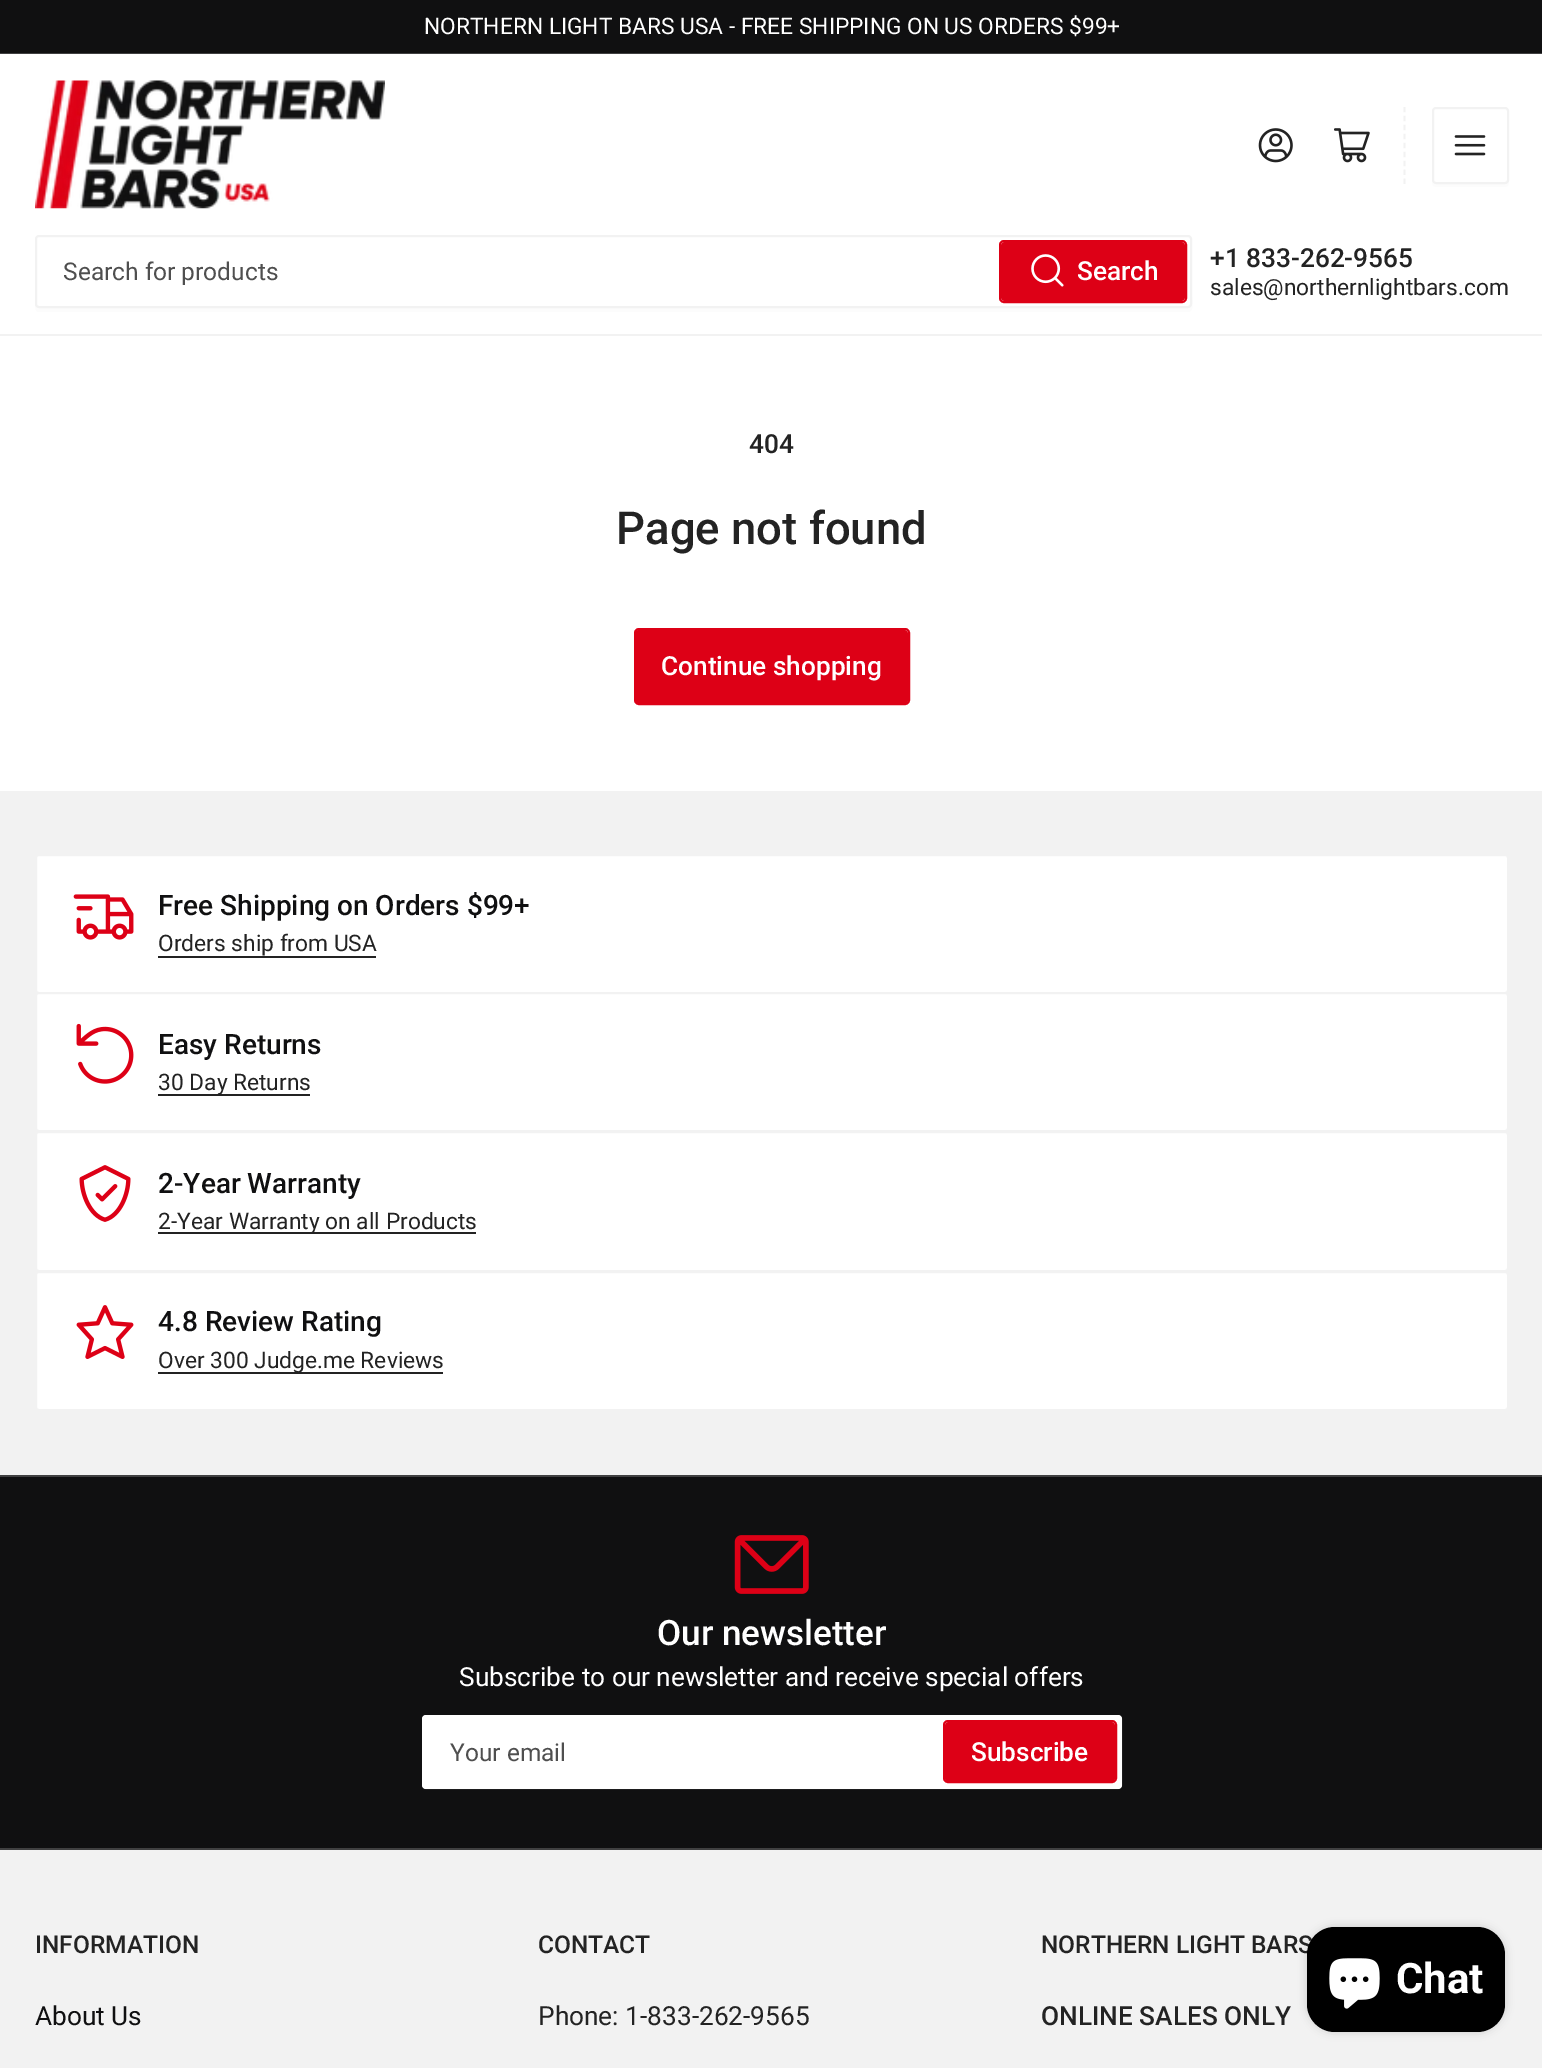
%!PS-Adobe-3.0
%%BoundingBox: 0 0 1542 2068
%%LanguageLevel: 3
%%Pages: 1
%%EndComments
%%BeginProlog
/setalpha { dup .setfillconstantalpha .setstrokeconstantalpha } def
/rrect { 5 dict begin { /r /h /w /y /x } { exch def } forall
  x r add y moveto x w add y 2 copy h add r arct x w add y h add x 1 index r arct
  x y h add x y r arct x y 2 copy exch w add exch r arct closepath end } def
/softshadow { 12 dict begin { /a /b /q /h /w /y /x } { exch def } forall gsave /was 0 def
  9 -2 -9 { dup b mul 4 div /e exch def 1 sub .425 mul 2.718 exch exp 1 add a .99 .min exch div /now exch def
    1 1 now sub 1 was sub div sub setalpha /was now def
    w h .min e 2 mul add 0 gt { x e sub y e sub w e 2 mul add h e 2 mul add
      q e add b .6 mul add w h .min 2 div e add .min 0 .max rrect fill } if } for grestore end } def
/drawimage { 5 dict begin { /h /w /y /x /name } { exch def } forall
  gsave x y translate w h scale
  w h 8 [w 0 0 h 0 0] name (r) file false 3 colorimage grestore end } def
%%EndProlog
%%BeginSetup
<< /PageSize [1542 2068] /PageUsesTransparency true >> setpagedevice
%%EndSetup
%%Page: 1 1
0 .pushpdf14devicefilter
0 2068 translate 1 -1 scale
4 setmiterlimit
1 setgray
0 0 1542 2068 rectfill
0.063 0.063 0.067 setrgbcolor
0 0 1542 53 rectfill
0.251 0.251 0.255 setrgbcolor
0 53 1542 1 rectfill
0.949 setgray
0 334 1542 2 rectfill
(images/1.raw) 35 80 350 129 drawimage
(images/2.raw) 1258 128 35 35 drawimage
(images/3.raw) 1334 128 36 35 drawimage
1.8 setlinewidth
[5.25 3.71] 0 setdash
newpath 1404.5 107 moveto 1404.5 184 lineto stroke
0.988 setgray
newpath 1432 182 moveto 1432 183 lineto 1432 185 1434 187 1436 187 curveto 1505 187 lineto 1507 187 1509 185 1509 183 curveto 1509 114 lineto 1508 112 lineto 1508 180 lineto 1508 182 1507 184 1505 184 curveto 1435 184 lineto 1434 184 1433 183 1432 182 curveto closepath fill
0.949 setgray
2 setlinewidth
[] 0 setdash
1433 108 75 75 3 rrect stroke
(images/4.raw) 1454 135 32 21 drawimage
0.988 setgray
newpath 35 304 moveto 35 307 35 311 38 312 curveto 1188 312 lineto 1195 312 1192 299 1192 297 curveto 1192 241 lineto 1192 304 lineto 1192 306 1190 308 1188 308 curveto 38 308 lineto 37 308 35 306 35 304 curveto closepath fill
0.949 setgray
36 236 1155 71 3 rrect stroke
0.867 0 0.086 setrgbcolor
1000 241 186 61 4 rrect stroke
1001 242 184 59 4 rrect fill
(images/5.raw) 1031 254 33 33 drawimage
635 629 274 75 4 rrect stroke
635 630 273 74 4 rrect fill
0.949 setgray
0 791 1542 684 rectfill
1 setgray
36 855 1472 138 3 rrect gsave fill grestore
0.949 setgray
stroke
(images/6.raw) 73 894 61 46 drawimage
0.137 setgray
158 956 218 2 rectfill
1 setgray
36 993 1472 138 3 rrect gsave fill grestore
0.949 setgray
stroke
(images/7.raw) 76 1023 58 61 drawimage
0.137 setgray
158 1094 152 2 rectfill
1 setgray
36 1132 1472 139 3 rrect gsave fill grestore
0.949 setgray
stroke
(images/8.raw) 79 1165 52 57 drawimage
0.137 setgray
158 1232 318 2 rectfill
1 setgray
36 1272 1472 138 3 rrect gsave fill grestore
0.949 setgray
stroke
(images/9.raw) 76 1305 58 54 drawimage
0.137 setgray
158 1372 285 2 rectfill
0.063 0.063 0.067 setrgbcolor
0 1477 1542 371 rectfill
0.251 0.251 0.255 setrgbcolor
0 1475 1542 2 rectfill
0 1848 1542 2 rectfill
(images/10.raw) 734 1535 75 59 drawimage
1 setgray
422 1715 700 74 4 rrect fill
0.2 setalpha
423 1716 698 72 3 rrect stroke
1 setalpha
0.867 0 0.086 setrgbcolor
944 1721 172 61 4 rrect stroke
945 1722 170 60 4 rrect fill
0.949 setgray
0 1850 1542 218 rectfill
0 setgray
1307 1927 198 105 28 4.5 0.15 softshadow
/Roboto-Regular [22.75 0 0 -22.75 0 0] selectfont
1 setgray
424 34 moveto (NORTHERN LIGHT BARS USA - FREE SHIPPING ON US ORDERS $99+) show
/Roboto-Regular [24.5 0 0 -24.5 0 0] selectfont
0.31 setgray
63 280 moveto (Search for products) show
/Roboto-Medium [26.25 0 0 -26.25 0 0] selectfont
1 setgray
1077 280 moveto (Search) show
0.137 setgray
1210 267 moveto (+1 833-262-9565) show
/Roboto-Regular [22.75 0 0 -22.75 0 0] selectfont
1210 295 moveto (sales@northernlightbars.com) show
/Roboto-Medium [26.25 0 0 -26.25 0 0] selectfont
749 453 moveto (404) show
/Roboto-Medium [45.5 0 0 -45.5 0 0] selectfont
616 544 moveto (Page not found) show
/Roboto-Medium [26.25 0 0 -26.25 0 0] selectfont
1 setgray
661 675 moveto (Continue shopping) show
/Roboto-Medium [28 0 0 -28 0 0] selectfont
0.063 0.063 0.067 setrgbcolor
158 915 moveto (Free Shipping on Orders $99+) show
/Roboto-Regular [22.75 0 0 -22.75 0 0] selectfont
0.137 setgray
158 951 moveto (Orders ship from USA) show
/Roboto-Medium [28 0 0 -28 0 0] selectfont
0.063 0.063 0.067 setrgbcolor
158 1054 moveto (Easy Returns) show
/Roboto-Regular [22.75 0 0 -22.75 0 0] selectfont
0.137 setgray
158 1090 moveto (30 Day Returns) show
/Roboto-Medium [28 0 0 -28 0 0] selectfont
0.063 0.063 0.067 setrgbcolor
158 1193 moveto (2-Year Warranty) show
/Roboto-Regular [22.75 0 0 -22.75 0 0] selectfont
0.137 setgray
158 1229 moveto (2-Year Warranty on all Products) show
/Roboto-Medium [28 0 0 -28 0 0] selectfont
0.063 0.063 0.067 setrgbcolor
158 1331 moveto (4.8 Review Rating) show
/Roboto-Regular [22.75 0 0 -22.75 0 0] selectfont
0.137 setgray
158 1368 moveto (Over 300 Judge.me Reviews) show
/Roboto-Medium [35 0 0 -35 0 0] selectfont
1 setgray
657 1645 moveto (Our newsletter) show
/Roboto-Regular [26.25 0 0 -26.25 0 0] selectfont
459 1686 moveto (Subscribe to our newsletter and receive special offers) show
/Roboto-Regular [24.5 0 0 -24.5 0 0] selectfont
0.31 setgray
450 1761 moveto (Your email) show
/Roboto-Medium [26.25 0 0 -26.25 0 0] selectfont
1 setgray
971 1761 moveto (Subscribe) show
/Roboto-Medium [24.5 0 0 -24.5 0 0] selectfont
0.137 setgray
35 1953 moveto (INFORMATION) show
/Roboto-Regular [26.25 0 0 -26.25 0 0] selectfont
0.063 0.063 0.067 setrgbcolor
35 2025 moveto (About Us) show
/Roboto-Medium [24.5 0 0 -24.5 0 0] selectfont
0.137 setgray
538 1953 moveto (CONTACT) show
/Roboto-Regular [26.25 0 0 -26.25 0 0] selectfont
538 2025 moveto (Phone: 1-833-262-9565) show
/Roboto-Medium [24.5 0 0 -24.5 0 0] selectfont
1041 1953 moveto (NORTHERN LIGHT BARS) show
/Roboto-Medium [26.25 0 0 -26.25 0 0] selectfont
1041 2025 moveto (ONLINE SALES ONLY) show
0 setgray
1307 1927 198 105 28 rrect fill
(images/11.raw) 1329 1958 51 51 drawimage
/Roboto-Bold [42 0 0 -42 0 0] selectfont
1 setgray
1396 1993 moveto (Chat) show
.poppdf14devicefilter showpage
%%EOF
